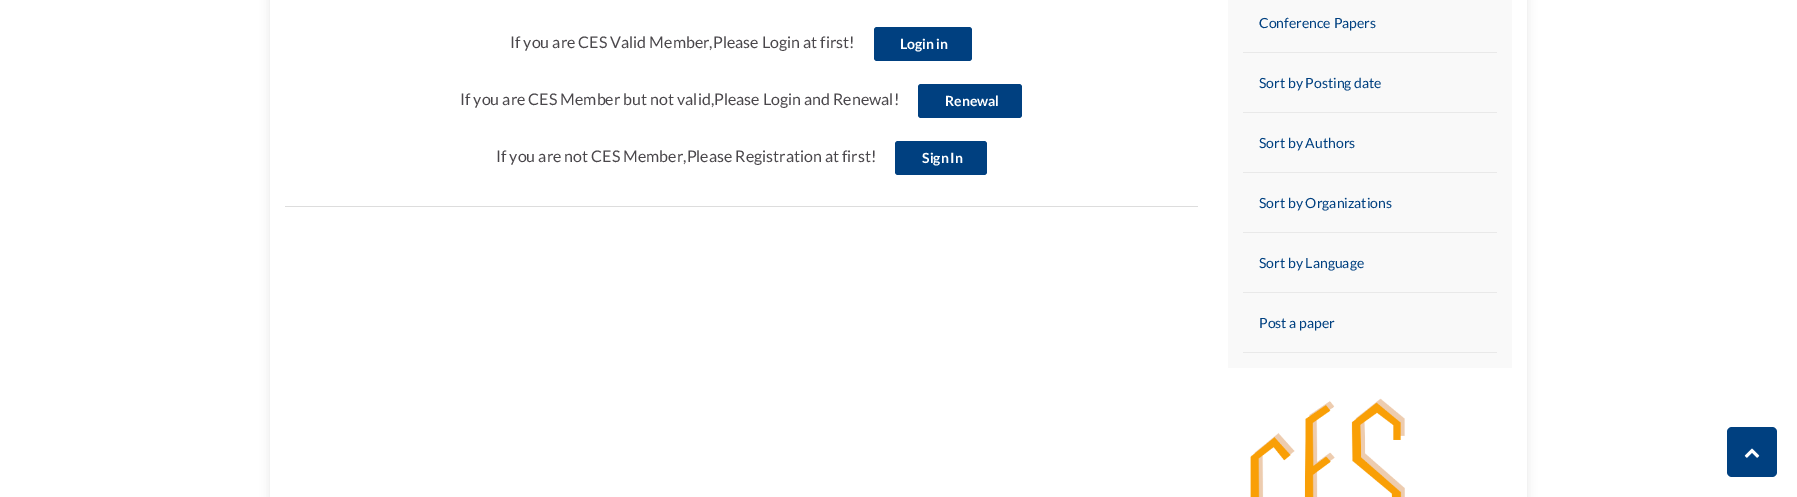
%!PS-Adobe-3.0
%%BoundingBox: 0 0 1797 497
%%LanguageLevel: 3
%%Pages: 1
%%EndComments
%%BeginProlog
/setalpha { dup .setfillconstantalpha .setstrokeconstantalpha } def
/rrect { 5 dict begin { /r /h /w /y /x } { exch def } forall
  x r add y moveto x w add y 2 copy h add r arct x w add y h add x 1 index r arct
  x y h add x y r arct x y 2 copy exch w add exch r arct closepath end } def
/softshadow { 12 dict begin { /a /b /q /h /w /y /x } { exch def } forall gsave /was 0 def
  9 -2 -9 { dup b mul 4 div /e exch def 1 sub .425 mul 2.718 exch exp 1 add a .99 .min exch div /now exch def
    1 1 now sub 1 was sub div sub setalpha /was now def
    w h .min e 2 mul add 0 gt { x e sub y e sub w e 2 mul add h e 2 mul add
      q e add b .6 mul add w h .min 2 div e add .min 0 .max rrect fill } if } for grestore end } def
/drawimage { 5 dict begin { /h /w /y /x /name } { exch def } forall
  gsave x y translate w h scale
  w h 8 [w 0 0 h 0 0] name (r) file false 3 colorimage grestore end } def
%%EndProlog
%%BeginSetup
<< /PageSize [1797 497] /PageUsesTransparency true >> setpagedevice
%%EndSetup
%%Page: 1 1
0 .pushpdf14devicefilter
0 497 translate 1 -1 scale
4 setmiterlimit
1 setgray
0 0 1797 497 rectfill
gsave
newpath 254 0 moveto 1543 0 lineto 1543 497 lineto 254 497 lineto closepath 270 -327 moveto 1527 -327 lineto 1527 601 lineto 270 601 lineto closepath eoclip newpath
0 setgray
270 -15 1257 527 0 5 0.1 softshadow
grestore
0 0.251 0.502 setrgbcolor
874 27 98 34 3 rrect fill
918 84 104 34 3 rrect fill
895 141 92 34 3 rrect fill
0.867 setgray
285 206 913 1 rectfill
0.976 setgray
1228 0 284 368 rectfill
0.914 setgray
1243 52 254 1 rectfill
1243 112 254 1 rectfill
1243 172 254 1 rectfill
1243 232 254 1 rectfill
1243 292 254 1 rectfill
1243 352 254 1 rectfill
(images/1.raw) 1250 398 155 99 drawimage
0 0.251 0.502 setrgbcolor
1727 427 50 50 5 rrect fill
(images/2.raw) 1744 448 16 10 drawimage
/Lato-Regular [16 0 0 -16 0 0] selectfont
0.29 0.278 0.294 setrgbcolor
510 48 moveto (If you are CES Valid Member,Please Login at first!) show
/Lato-Bold [14 0 0 -14 0 0] selectfont
1 setgray
900 49 moveto -1 0 32 (Login in) widthshow
/Lato-Regular [16 0 0 -16 0 0] selectfont
0.29 0.278 0.294 setrgbcolor
460 105 moveto (If you are CES Member but not valid,Please Login and Renewal!) show
/Lato-Bold [14 0 0 -14 0 0] selectfont
1 setgray
945 106 moveto (Renewal) show
/Lato-Regular [16 0 0 -16 0 0] selectfont
0.29 0.278 0.294 setrgbcolor
496 162 moveto (If you are not CES Member,Please Registration at first!) show
/Lato-Bold [14 0 0 -14 0 0] selectfont
1 setgray
922 163 moveto -1 0 32 (Sign In) widthshow
/Lato-Regular [14 0 0 -14 0 0] selectfont
0 0.251 0.502 setrgbcolor
1259 28 moveto (Conference Papers) show
1259 88 moveto (Sort by Posting date) show
1259 148 moveto (Sort by Authors) show
1259 208 moveto (Sort by Organizations) show
1259 268 moveto (Sort by Language) show
1259 328 moveto (Post a paper) show
.poppdf14devicefilter showpage
%%EOF
